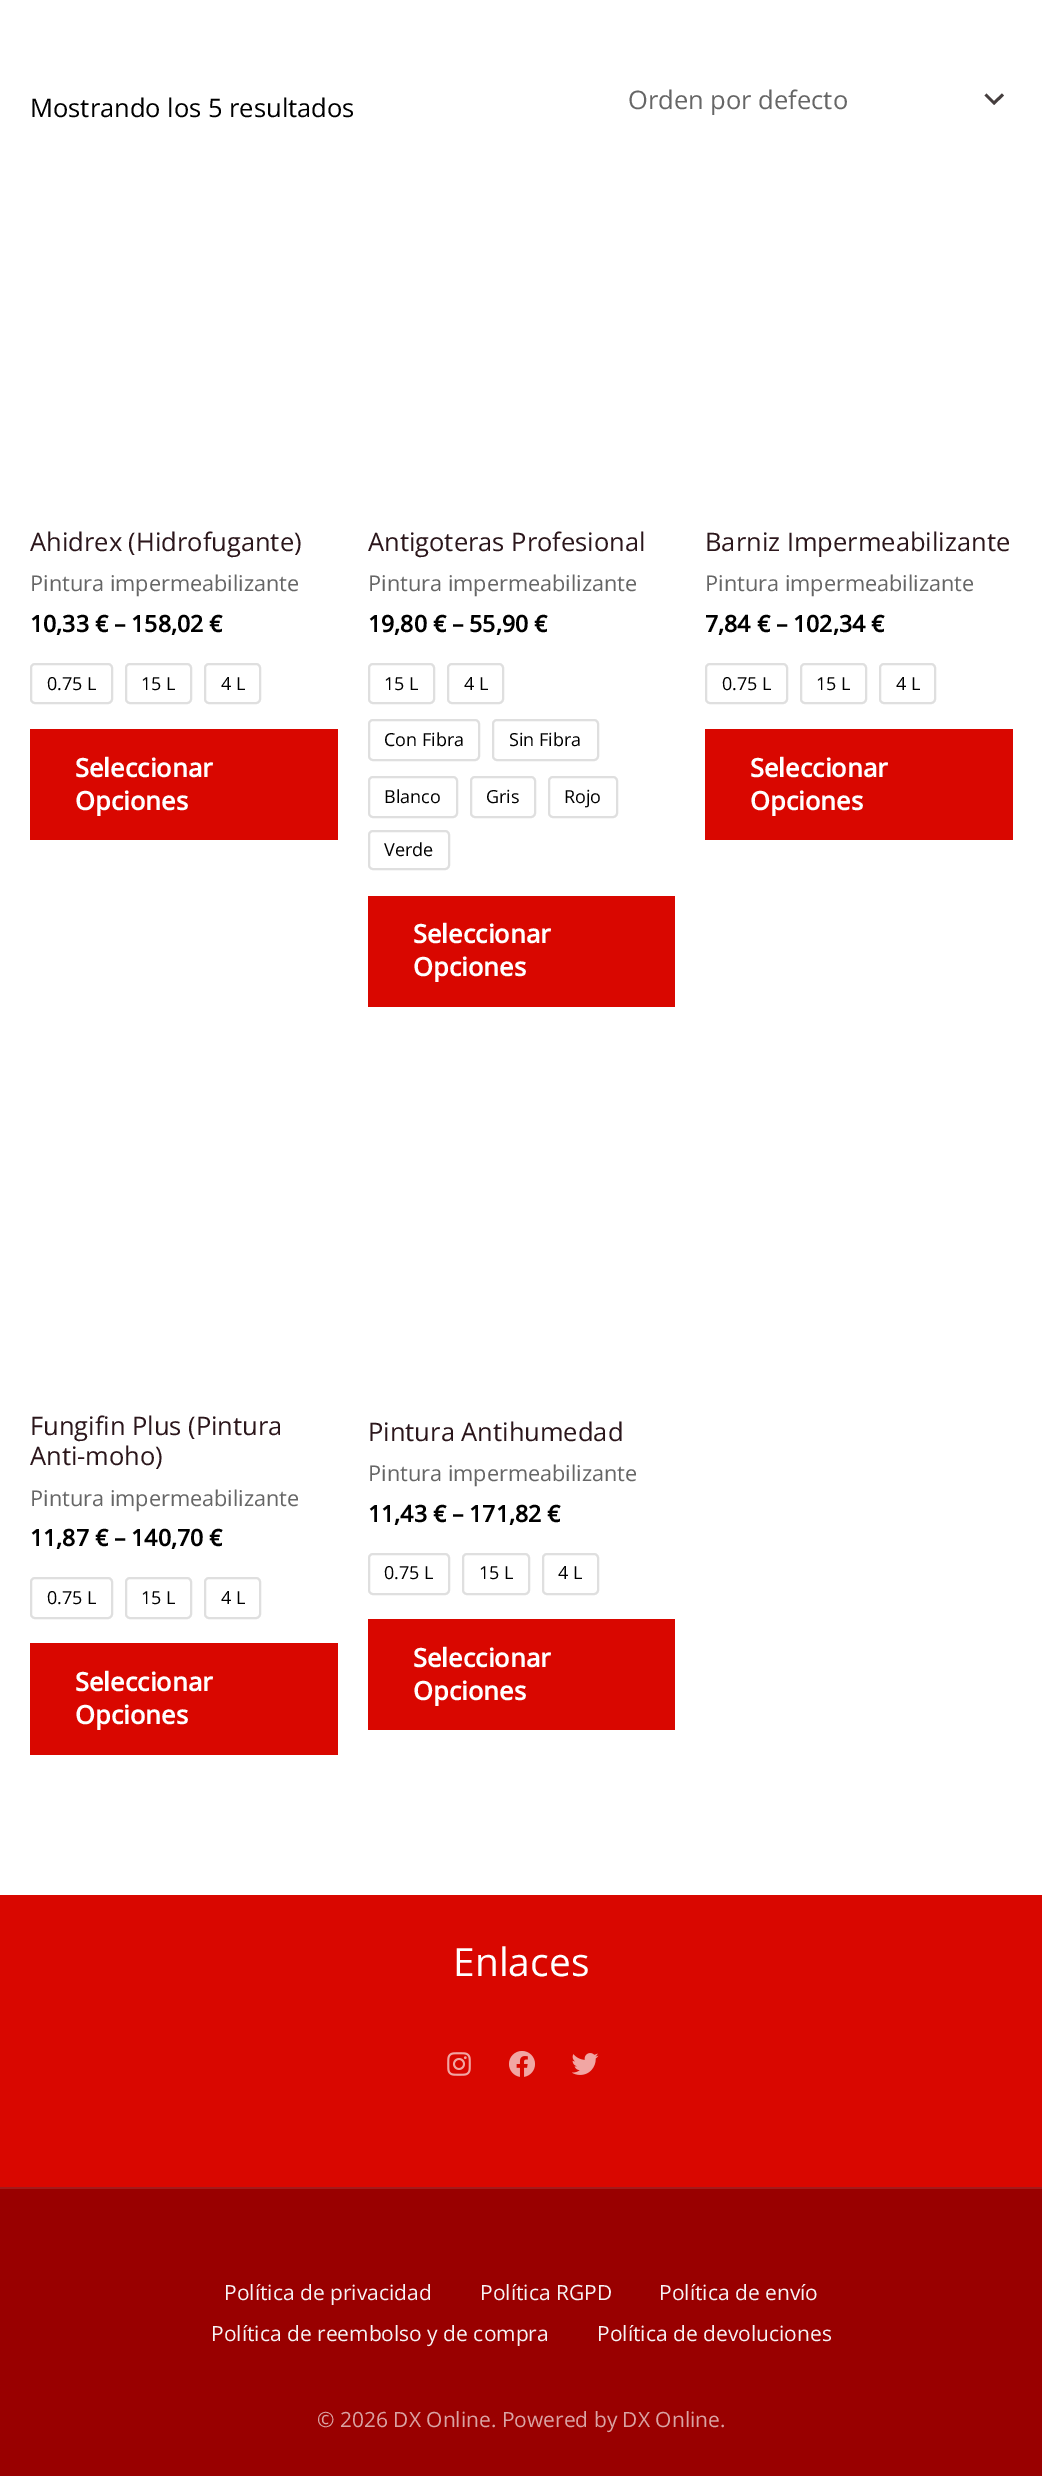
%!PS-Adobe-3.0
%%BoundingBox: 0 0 1042 2476
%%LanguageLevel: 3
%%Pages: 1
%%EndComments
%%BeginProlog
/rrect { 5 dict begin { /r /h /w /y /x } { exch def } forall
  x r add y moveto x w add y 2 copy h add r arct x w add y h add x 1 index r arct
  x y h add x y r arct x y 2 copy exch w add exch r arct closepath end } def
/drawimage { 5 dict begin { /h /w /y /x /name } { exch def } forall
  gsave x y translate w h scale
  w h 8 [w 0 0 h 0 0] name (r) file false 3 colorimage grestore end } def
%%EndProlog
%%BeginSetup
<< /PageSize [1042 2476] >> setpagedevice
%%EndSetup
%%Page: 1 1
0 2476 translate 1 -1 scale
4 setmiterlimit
1 setgray
0 0 1042 2476 rectfill
0.271 0.243 0.243 setrgbcolor
newpath 984.5 95.5 moveto 994 105 lineto 1004 95.5 lineto 1002 93.5 lineto 994 101 lineto 986.5 93.5 lineto closepath fill
0.875 setgray
2 setlinewidth
31 664 81 39 4 rrect stroke
126 664 65 39 4 rrect stroke
205 664 55 39 4 rrect stroke
0.851 0.027 0 setrgbcolor
30 729 308 111 rectfill
0.875 setgray
369 664 65 39 4 rrect stroke
448 664 55 39 4 rrect stroke
369 720 110 40 4 rrect stroke
493 720 105 40 4 rrect stroke
369 777 88 40 4 rrect stroke
471 777 64 40 4 rrect stroke
549 777 68 40 4 rrect stroke
369 831 80 38 4 rrect stroke
0.851 0.027 0 setrgbcolor
368 896 307 111 rectfill
0.875 setgray
706 664 81 39 4 rrect stroke
801 664 65 39 4 rrect stroke
880 664 55 39 4 rrect stroke
0.851 0.027 0 setrgbcolor
705 729 308 111 rectfill
0.875 setgray
31 1578 81 40 4 rrect stroke
126 1578 65 40 4 rrect stroke
205 1578 55 40 4 rrect stroke
0.851 0.027 0 setrgbcolor
30 1643 308 112 rectfill
0.875 setgray
369 1554 80 40 4 rrect stroke
463 1554 66 40 4 rrect stroke
543 1554 55 40 4 rrect stroke
0.851 0.027 0 setrgbcolor
368 1619 307 111 rectfill
0 1895 1042 292 rectfill
(images/1.raw) 447 2052 24 24 drawimage
(images/2.raw) 509 2051 26 26 drawimage
(images/3.raw) 572 2053 27 22 drawimage
0.6 0 0 setrgbcolor
0 2189 1042 287 rectfill
0.639 0.102 0.102 setrgbcolor
0 2187 1042 2 rectfill
/OpenSans-Regular [25.5 0 0 -25.5 0 0] selectfont
0 setgray
30 117 moveto (Mostrando los 5 resultados) show
0.4 setgray
628 109 moveto (Orden por defecto) show
0.169 0.086 0.106 setrgbcolor
30 551 moveto (Ahidrex \(Hidrofugante\)) show
/OpenSans-Regular [21.75 0 0 -21.75 0 0] selectfont
0.4 setgray
30 591 moveto (Pintura impermeabilizante) show
/OpenSans-Bold [23 0 0 -23 0 0] selectfont
0 setgray
30 632 moveto (10,33 € – 158,02 €) show
/OpenSans-Regular [18 0 0 -18 0 0] selectfont
47 690 moveto (0.75 L) show
141 690 moveto (15 L) show
221 690 moveto (4 L) show
/OpenSans-Bold [25.5 0 0 -25.5 0 0] selectfont
1 setgray
75 777 moveto (Seleccionar) show
75 810 moveto (Opciones) show
/OpenSans-Regular [25.5 0 0 -25.5 0 0] selectfont
0.169 0.086 0.106 setrgbcolor
368 551 moveto (Antigoteras Profesional) show
/OpenSans-Regular [21.75 0 0 -21.75 0 0] selectfont
0.4 setgray
368 591 moveto (Pintura impermeabilizante) show
/OpenSans-Bold [23 0 0 -23 0 0] selectfont
0 setgray
368 632 moveto (19,80 € – 55,90 €) show
/OpenSans-Regular [18 0 0 -18 0 0] selectfont
384 690 moveto (15 L) show
464 690 moveto (4 L) show
384 746 moveto (Con Fibra) show
509 746 moveto (Sin Fibra) show
384 803 moveto (Blanco) show
486 803 moveto (Gris) show
564 803 moveto (Rojo) show
384 856 moveto (Verde) show
/OpenSans-Bold [25.5 0 0 -25.5 0 0] selectfont
1 setgray
413 943 moveto (Seleccionar) show
413 976 moveto (Opciones) show
/OpenSans-Regular [25.5 0 0 -25.5 0 0] selectfont
0.169 0.086 0.106 setrgbcolor
705 551 moveto (Barniz Impermeabilizante) show
/OpenSans-Regular [21.75 0 0 -21.75 0 0] selectfont
0.4 setgray
705 591 moveto (Pintura impermeabilizante) show
/OpenSans-Bold [23 0 0 -23 0 0] selectfont
0 setgray
705 632 moveto (7,84 € – 102,34 €) show
/OpenSans-Regular [18 0 0 -18 0 0] selectfont
722 690 moveto (0.75 L) show
816 690 moveto (15 L) show
896 690 moveto (4 L) show
/OpenSans-Bold [25.5 0 0 -25.5 0 0] selectfont
1 setgray
750 777 moveto (Seleccionar) show
750 810 moveto (Opciones) show
/OpenSans-Regular [25.5 0 0 -25.5 0 0] selectfont
0.169 0.086 0.106 setrgbcolor
30 1435 moveto (Fungifin Plus \(Pintura) show
30 1465 moveto (Anti-moho\)) show
/OpenSans-Regular [21.75 0 0 -21.75 0 0] selectfont
0.4 setgray
30 1506 moveto (Pintura impermeabilizante) show
/OpenSans-Bold [23 0 0 -23 0 0] selectfont
0 setgray
30 1546 moveto (11,87 € – 140,70 €) show
/OpenSans-Regular [18 0 0 -18 0 0] selectfont
47 1604 moveto (0.75 L) show
141 1604 moveto (15 L) show
221 1604 moveto (4 L) show
/OpenSans-Bold [25.5 0 0 -25.5 0 0] selectfont
1 setgray
75 1691 moveto (Seleccionar) show
75 1724 moveto (Opciones) show
/OpenSans-Regular [25.5 0 0 -25.5 0 0] selectfont
0.169 0.086 0.106 setrgbcolor
368 1441 moveto (Pintura Antihumedad) show
/OpenSans-Regular [21.75 0 0 -21.75 0 0] selectfont
0.4 setgray
368 1481 moveto (Pintura impermeabilizante) show
/OpenSans-Bold [23 0 0 -23 0 0] selectfont
0 setgray
368 1522 moveto (11,43 € – 171,82 €) show
/OpenSans-Regular [18 0 0 -18 0 0] selectfont
384 1579 moveto (0.75 L) show
479 1579 moveto (15 L) show
558 1579 moveto (4 L) show
/OpenSans-Bold [25.5 0 0 -25.5 0 0] selectfont
1 setgray
413 1667 moveto (Seleccionar) show
413 1700 moveto (Opciones) show
/OpenSans-Regular [39 0 0 -39 0 0] selectfont
453 1976 moveto (Enlaces) show
/OpenSans-Regular [21 0 0 -21 0 0] selectfont
0.969 0.953 0.961 setrgbcolor
224 2300 moveto (Política de privacidad) show
480 2300 moveto (Política RGPD) show
659 2300 moveto (Política de envío) show
211 2341 moveto (Política de reembolso y de compra) show
597 2341 moveto (Política de devoluciones) show
0.855 0.639 0.639 setrgbcolor
317 2427 moveto (© 2026 DX Online. Powered by DX Online.) show
showpage
%%EOF
